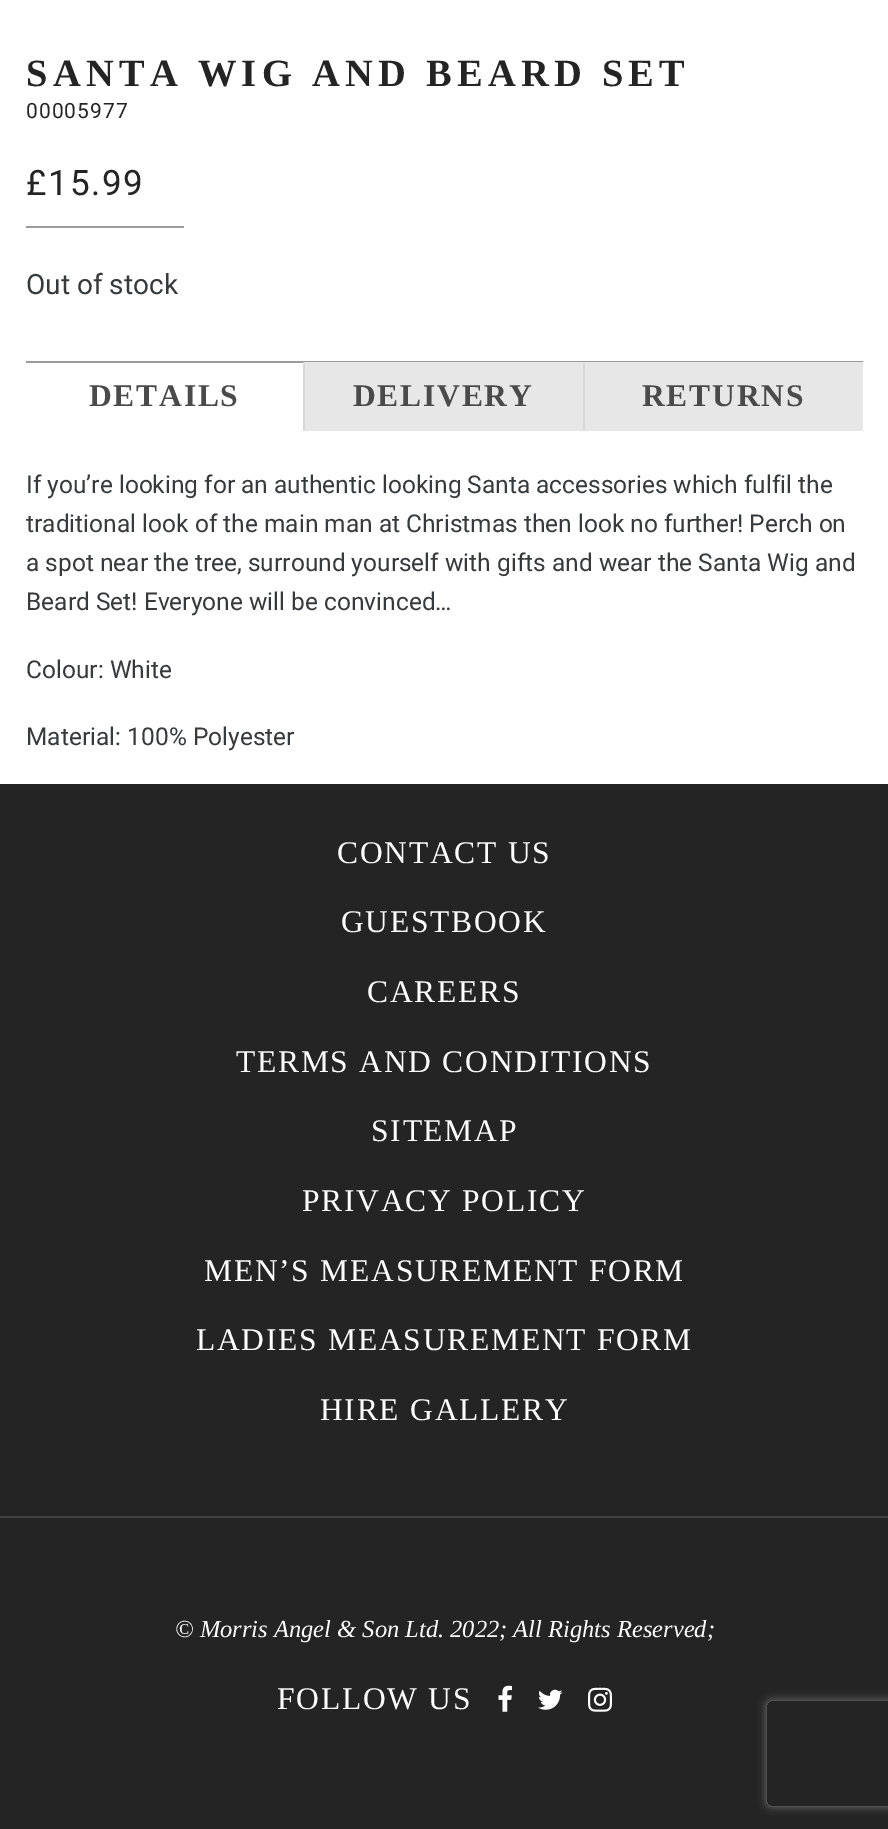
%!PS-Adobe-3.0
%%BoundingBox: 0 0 888 1829
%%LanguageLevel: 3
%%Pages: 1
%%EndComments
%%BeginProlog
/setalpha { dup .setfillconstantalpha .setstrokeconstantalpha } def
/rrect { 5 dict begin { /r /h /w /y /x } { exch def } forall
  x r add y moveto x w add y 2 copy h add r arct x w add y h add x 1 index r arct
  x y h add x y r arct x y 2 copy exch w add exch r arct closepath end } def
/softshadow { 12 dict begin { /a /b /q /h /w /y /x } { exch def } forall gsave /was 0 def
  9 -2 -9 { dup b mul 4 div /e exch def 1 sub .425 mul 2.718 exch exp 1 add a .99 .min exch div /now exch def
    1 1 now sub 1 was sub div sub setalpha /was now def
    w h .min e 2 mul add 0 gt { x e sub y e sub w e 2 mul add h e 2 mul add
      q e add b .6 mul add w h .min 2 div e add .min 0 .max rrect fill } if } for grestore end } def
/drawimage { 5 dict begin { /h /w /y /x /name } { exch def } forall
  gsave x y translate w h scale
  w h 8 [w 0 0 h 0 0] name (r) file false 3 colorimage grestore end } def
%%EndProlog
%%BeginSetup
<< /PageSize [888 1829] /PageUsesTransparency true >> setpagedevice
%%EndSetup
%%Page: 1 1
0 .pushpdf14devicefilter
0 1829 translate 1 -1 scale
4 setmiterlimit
0.141 setgray
0 0 888 1829 rectfill
1 setgray
0 0 888 784 rectfill
0.608 setgray
26 226 158 2 rectfill
26 361 837 2 rectfill
0.847 setgray
303 362 2 69 rectfill
0.906 setgray
305 362 278 69 rectfill
0.847 setgray
583 362 2 69 rectfill
0.906 setgray
585 362 278 69 rectfill
0.255 setgray
0 1516 888 2 rectfill
(images/1.raw) 498 1685 14 27 drawimage
(images/2.raw) 538 1689 25 21 drawimage
(images/3.raw) 588 1687 24 25 drawimage
gsave
newpath 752 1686 moveto 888 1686 lineto 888 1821 lineto 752 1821 lineto closepath 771 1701 moveto 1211 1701 lineto 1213 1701 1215 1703 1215 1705 curveto 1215 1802 lineto 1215 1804 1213 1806 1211 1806 curveto 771 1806 lineto 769 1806 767 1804 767 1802 curveto 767 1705 lineto 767 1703 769 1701 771 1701 curveto closepath eoclip newpath
0.502 setgray
767 1701 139 105 4 4.5 1 softshadow
grestore
/LiberationSerif-Bold [38.5 0 0 -38.5 0 0] selectfont
0.141 setgray
26 86 moveto 5.25 0 (SANTA WIG AND BEARD SET) ashow
/Roboto-Regular [21 0 0 -21 0 0] selectfont
26 118 moveto 1 0 (00005977) ashow
/Roboto-Regular [35 0 0 -35 0 0] selectfont
26 195 moveto 1.75 0 (£15.99) ashow
/Roboto-Regular [28 0 0 -28 0 0] selectfont
0.216 0.227 0.235 setrgbcolor
26 294 moveto (Out of stock) show
/LiberationSerif-Bold [31.5 0 0 -31.5 0 0] selectfont
0.29 setgray
89 406 moveto 1.75 0 (DETAILS) ashow
353 406 moveto 1.75 0 (DELIVERY) ashow
642 406 moveto 1.75 0 (RETURNS) ashow
/Roboto-Regular [24.5 0 0 -24.5 0 0] selectfont
0.216 0.227 0.235 setrgbcolor
26 493 moveto (If you’re looking for an authentic looking Santa accessories which fulfil the) show
26 532 moveto (traditional look of the main man at Christmas then look no further! Perch on) show
26 571 moveto (a spot near the tree, surround yourself with gifts and wear the Santa Wig and) show
26 610 moveto (Beard Set! Everyone will be convinced…) show
26 678 moveto (Colour: White) show
26 745 moveto (Material: 100% Polyester) show
/LiberationSerif-Regular [31.5 0 0 -31.5 0 0] selectfont
1 setgray
337 863 moveto 1.75 0 (CONTACT US) ashow
341 932 moveto 1.75 0 (GUESTBOOK) ashow
367 1002 moveto 1.75 0 (CAREERS) ashow
236 1072 moveto 1.75 0 (TERMS AND CONDITIONS) ashow
371 1141 moveto 1.75 0 (SITEMAP) ashow
302 1211 moveto 1.75 0 (PRIVACY POLICY) ashow
204 1281 moveto 1.75 0 (MEN’S MEASUREMENT FORM) ashow
196 1350 moveto 1.75 0 (LADIES MEASUREMENT FORM) ashow
320 1420 moveto 1.75 0 (HIRE GALLERY) ashow
/LiberationSerif-Italic [24.5 0 0 -24.5 0 0] selectfont
175 1637 moveto (© Morris Angel & Son Ltd. 2022; All Rights Reserved;) show
/LiberationSerif-Regular [31.5 0 0 -31.5 0 0] selectfont
277 1709 moveto 1.75 0 (FOLLOW US) ashow
.poppdf14devicefilter showpage
%%EOF
